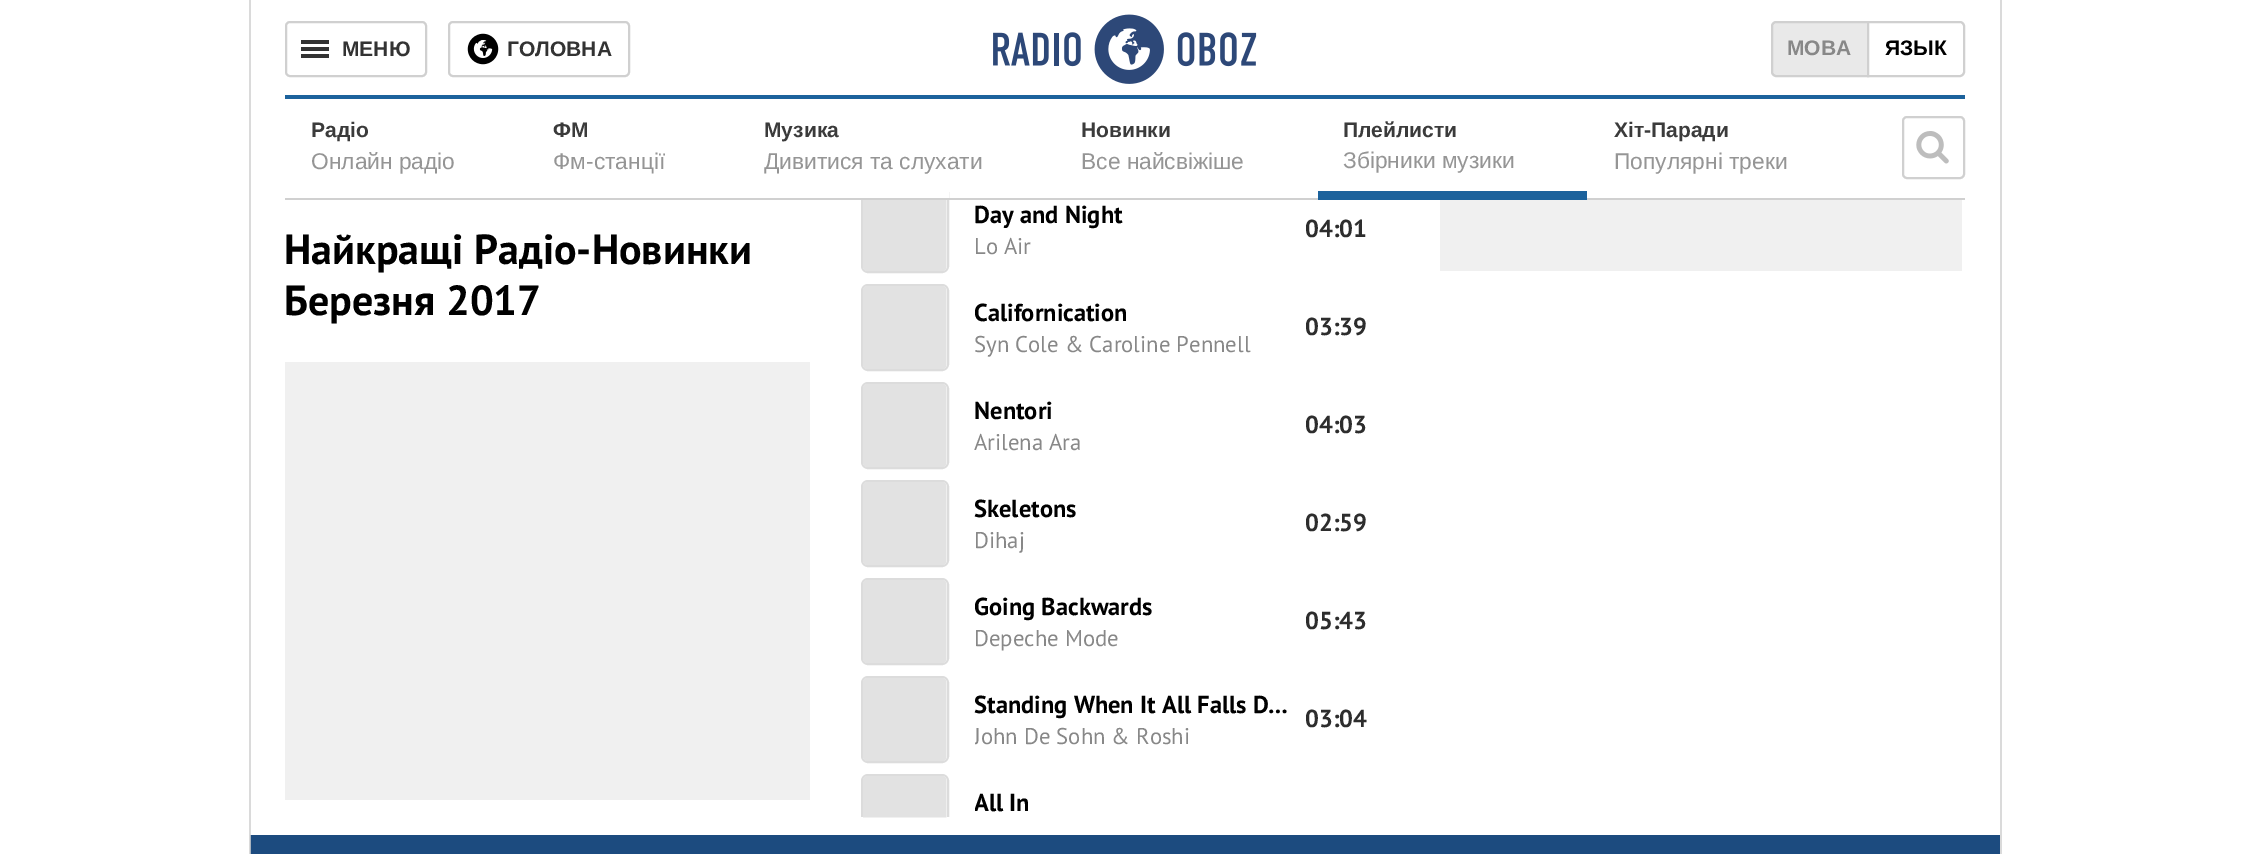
%!PS-Adobe-3.0
%%BoundingBox: 0 0 2248 854
%%LanguageLevel: 3
%%Pages: 1
%%EndComments
%%BeginProlog
/rrect { 5 dict begin { /r /h /w /y /x } { exch def } forall
  x r add y moveto x w add y 2 copy h add r arct x w add y h add x 1 index r arct
  x y h add x y r arct x y 2 copy exch w add exch r arct closepath end } def
/drawimage { 5 dict begin { /h /w /y /x /name } { exch def } forall
  gsave x y translate w h scale
  w h 8 [w 0 0 h 0 0] name (r) file false 3 colorimage grestore end } def
%%EndProlog
%%BeginSetup
<< /PageSize [2248 854] >> setpagedevice
%%EndSetup
%%Page: 1 1
0 854 translate 1 -1 scale
4 setmiterlimit
1 setgray
0 0 2248 854 rectfill
0.855 setgray
249 0 2 854 rectfill
0.863 setgray
2 setlinewidth
862 187 86 85 6 rrect stroke
1 setgray
861 186 88 14 rectfill
0.11 0.384 0.612 setrgbcolor
285 95 1680 4 rectfill
0.816 setgray
286 22 140 54 4 rrect stroke
0.2 setgray
301 40 28 4 rectfill
301 54 28 4 rectfill
301 47 28 4 rectfill
0.816 setgray
449 22 180 54 4 rrect stroke
(images/1.raw) 467 33 32 32 drawimage
(images/2.raw) 993 14 264 70 drawimage
0.914 setgray
newpath 1776 22 moveto 1868 22 lineto 1868 76 lineto 1776 76 lineto 1774 76 1772 74 1772 72 curveto 1772 26 lineto 1772 24 1774 22 1776 22 curveto closepath gsave fill grestore
0.816 setgray
stroke
1 setgray
newpath 1868 22 moveto 1960 22 lineto 1962 22 1964 24 1964 26 curveto 1964 72 lineto 1964 74 1962 76 1960 76 curveto 1868 76 lineto closepath gsave fill grestore
0.816 setgray
stroke
0.855 setgray
2000 0 2 854 rectfill
0.816 setgray
285 198 1680 2 rectfill
0.11 0.384 0.612 setrgbcolor
1318 191 269 9 rectfill
0.816 setgray
1903 117 61 61 4 rrect stroke
(images/3.raw) 1916 131 33 33 drawimage
0.941 setgray
285 362 525 438 rectfill
(images/4.raw) 863 200 84 71 drawimage
0.863 setgray
862 285 86 85 6 rrect stroke
(images/5.raw) 863 286 84 83 drawimage
862 383 86 85 6 rrect stroke
(images/5.raw) 863 384 84 83 drawimage
862 481 86 85 6 rrect stroke
(images/5.raw) 863 482 84 83 drawimage
862 579 86 85 6 rrect stroke
(images/5.raw) 863 580 84 83 drawimage
862 677 86 85 6 rrect stroke
(images/5.raw) 863 678 84 83 drawimage
gsave
856 0 525 817 rectclip
862 775 86 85 6 rrect stroke
grestore
(images/6.raw) 863 776 84 42 drawimage
0.941 setgray
1440 200 522 71 rectfill
0.11 0.294 0.498 setrgbcolor
251 835 1749 19 rectfill
0.667 0.706 0.749 setrgbcolor
250 835 1 19 rectfill
/LiberationSans-Bold [21 0 0 -21 0 0] selectfont
0.2 setgray
342 56 moveto (МЕНЮ) show
507 56 moveto (ГОЛОВНА) show
0.533 setgray
1787 55 moveto (МОВА) show
0 setgray
1885 55 moveto (ЯЗЫК) show
0.231 setgray
311 137 moveto (Радіо) show
/LiberationSans-Regular [22.75 0 0 -22.75 0 0] selectfont
0.584 setgray
311 169 moveto (Онлайн радіо) show
/LiberationSans-Bold [21 0 0 -21 0 0] selectfont
0.231 setgray
553 137 moveto (ФМ) show
/LiberationSans-Regular [22.75 0 0 -22.75 0 0] selectfont
0.584 setgray
553 169 moveto (Фм-станції) show
/LiberationSans-Bold [21 0 0 -21 0 0] selectfont
0.231 setgray
764 137 moveto (Музика) show
/LiberationSans-Regular [22.75 0 0 -22.75 0 0] selectfont
0.584 setgray
764 169 moveto (Дивитися та слухати) show
/LiberationSans-Bold [21 0 0 -21 0 0] selectfont
0.231 setgray
1081 137 moveto (Новинки) show
/LiberationSans-Regular [22.75 0 0 -22.75 0 0] selectfont
0.584 setgray
1081 169 moveto (Все найсвіжіше) show
/LiberationSans-Bold [21 0 0 -21 0 0] selectfont
0.231 setgray
1343 137 moveto (Плейлисти) show
/LiberationSans-Regular [22.75 0 0 -22.75 0 0] selectfont
0.584 setgray
1343 168 moveto (Збірники музики) show
/LiberationSans-Bold [21 0 0 -21 0 0] selectfont
0.231 setgray
1614 137 moveto (Хіт-Паради) show
/LiberationSans-Regular [22.75 0 0 -22.75 0 0] selectfont
0.584 setgray
1614 169 moveto (Популярні треки) show
/PTSans-Bold [42 0 0 -42 0 0] selectfont
0 setgray
284 264 moveto (Найкращі Радіо-Новинки) show
284 315 moveto (Березня 2017) show
/PTSans-Bold [24.5 0 0 -24.5 0 0] selectfont
974 223 moveto (Day and Night) show
/PTSans-Regular [22.75 0 0 -22.75 0 0] selectfont
0.533 setgray
974 254 moveto (Lo Air) show
/PTSans-Bold [24.5 0 0 -24.5 0 0] selectfont
0.176 setgray
1305 237 moveto (04:01) show
gsave
975 296 275 35 rectclip
0 setgray
974 321 moveto (Californication) show
grestore
/PTSans-Regular [22.75 0 0 -22.75 0 0] selectfont
0.533 setgray
974 352 moveto (Syn Cole & Caroline Pennell) show
/PTSans-Bold [24.5 0 0 -24.5 0 0] selectfont
0.176 setgray
1305 335 moveto (03:39) show
0 setgray
974 419 moveto (Nentori) show
/PTSans-Regular [22.75 0 0 -22.75 0 0] selectfont
0.533 setgray
974 450 moveto (Arilena Ara) show
/PTSans-Bold [24.5 0 0 -24.5 0 0] selectfont
0.176 setgray
1305 433 moveto (04:03) show
0 setgray
974 517 moveto (Skeletons) show
/PTSans-Regular [22.75 0 0 -22.75 0 0] selectfont
0.533 setgray
974 548 moveto (Dihaj) show
/PTSans-Bold [24.5 0 0 -24.5 0 0] selectfont
0.176 setgray
1305 531 moveto (02:59) show
gsave
975 590 178 35 rectclip
0 setgray
974 615 moveto (Going Backwards) show
grestore
/PTSans-Regular [22.75 0 0 -22.75 0 0] selectfont
0.533 setgray
974 646 moveto (Depeche Mode) show
/PTSans-Bold [24.5 0 0 -24.5 0 0] selectfont
0.176 setgray
1305 629 moveto (05:43) show
0 setgray
974 713 moveto (Standing When It All Falls D…) show
gsave
975 723 327 28 rectclip
/PTSans-Regular [22.75 0 0 -22.75 0 0] selectfont
0.533 setgray
974 744 moveto (John De Sohn & Roshi) show
grestore
0.176 setgray
1305 727 moveto (03:04) show
gsave
975 786 315 31 rectclip
0 setgray
974 811 moveto (All In) show
grestore
showpage
%%EOF
